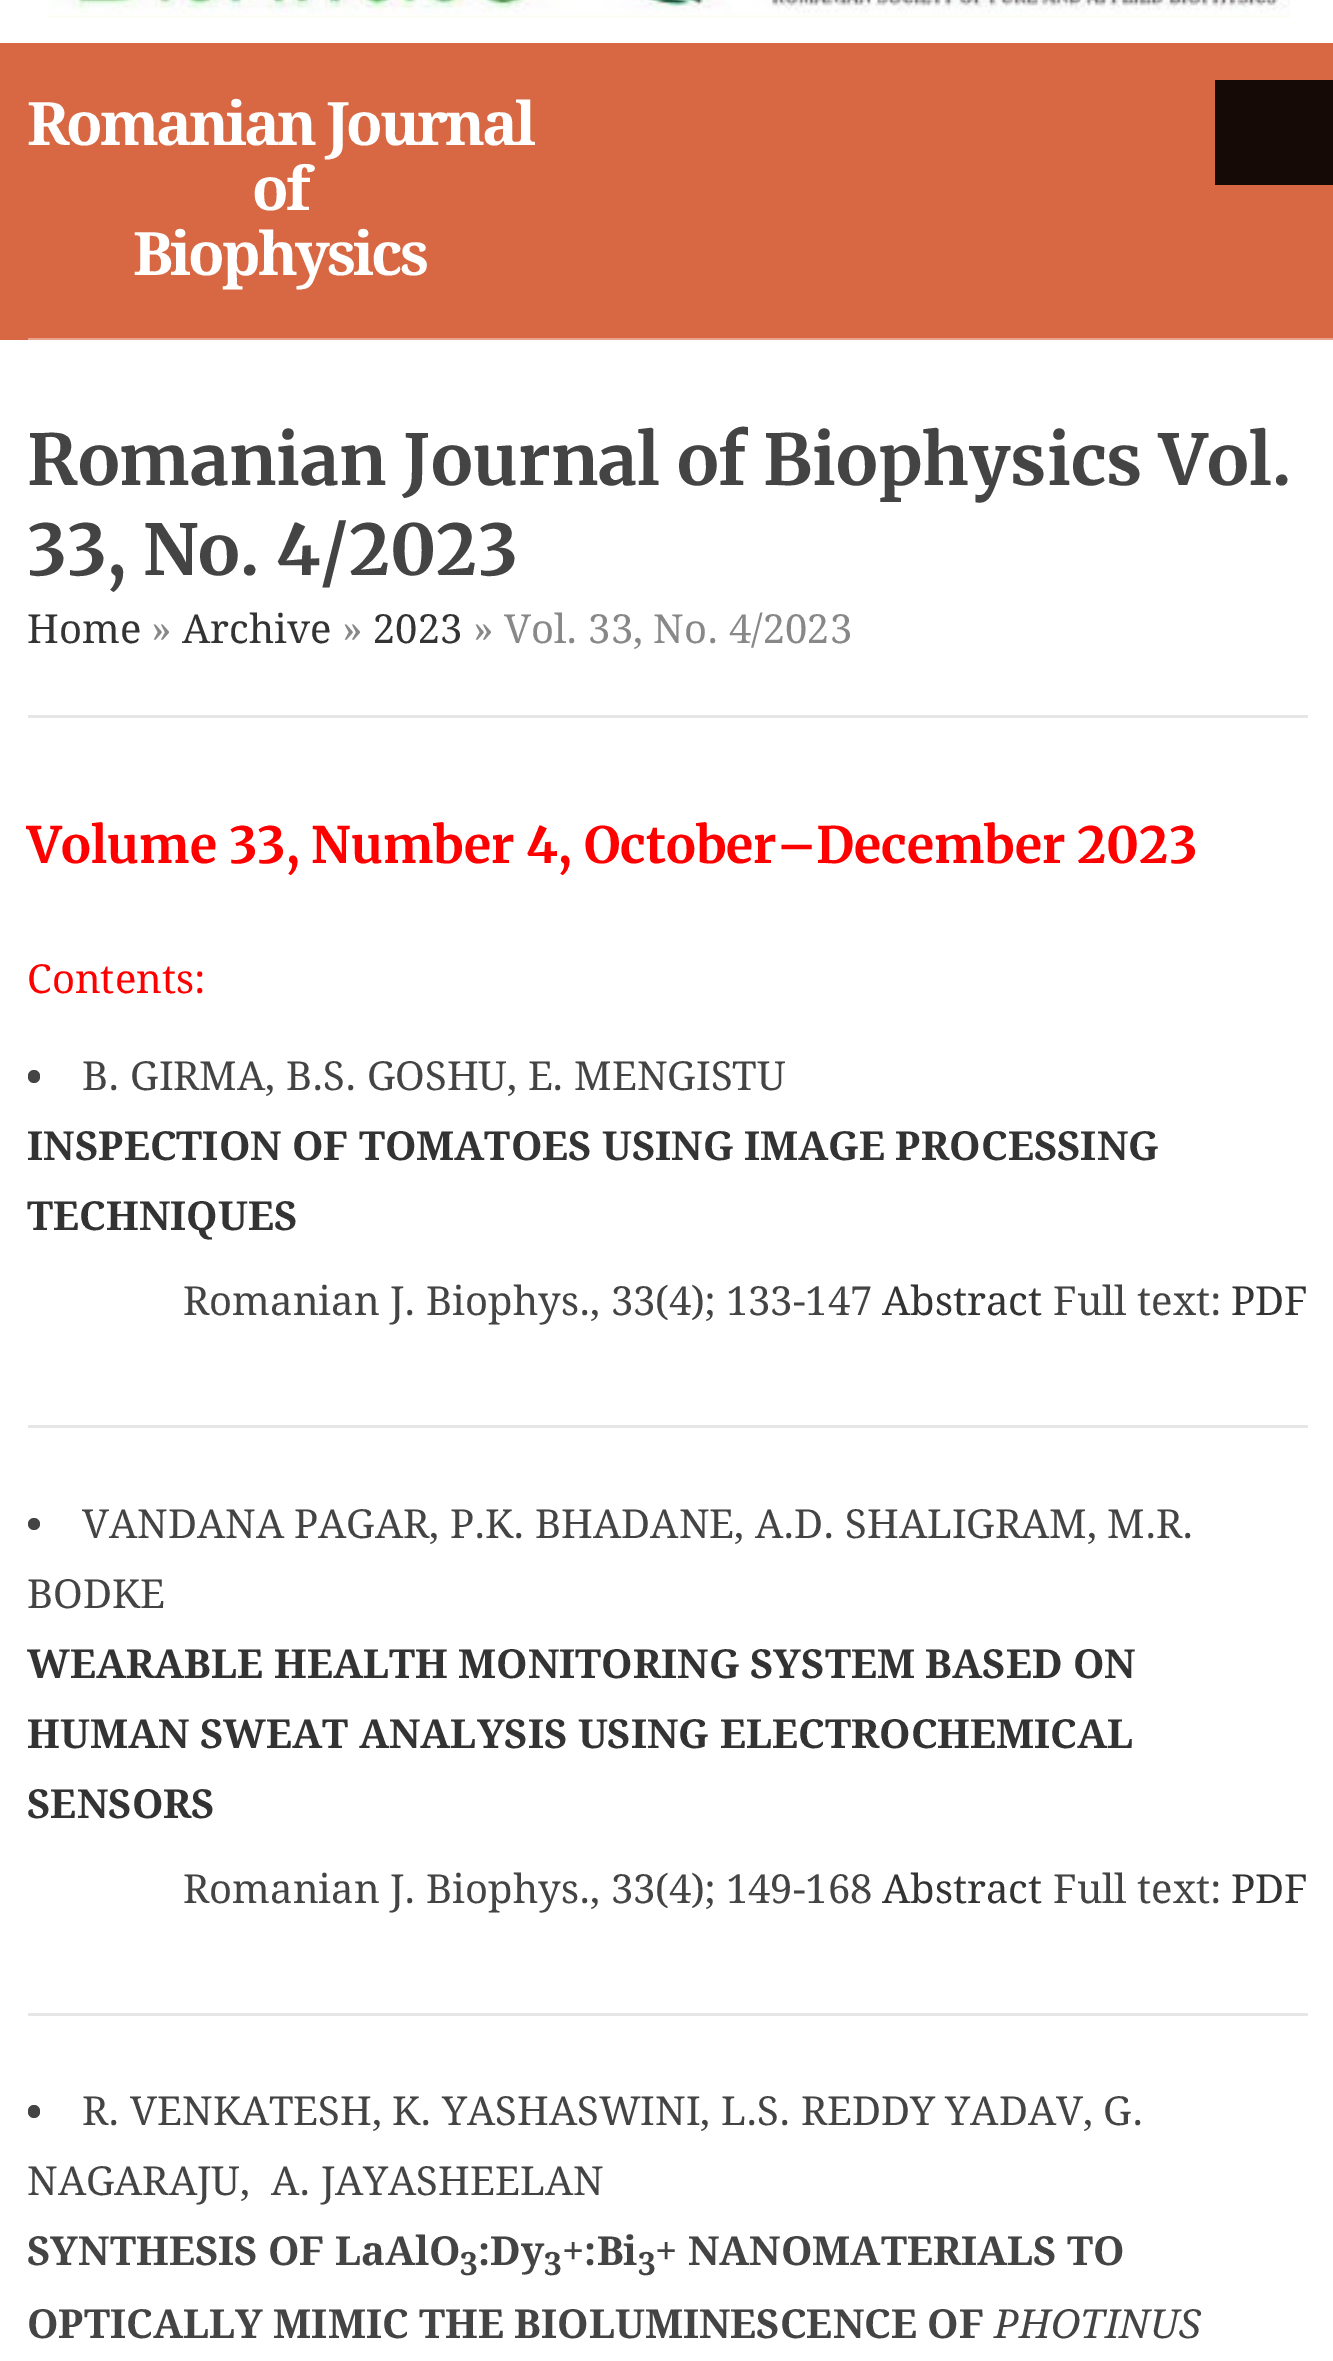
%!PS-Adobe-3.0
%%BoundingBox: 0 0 1333 2361
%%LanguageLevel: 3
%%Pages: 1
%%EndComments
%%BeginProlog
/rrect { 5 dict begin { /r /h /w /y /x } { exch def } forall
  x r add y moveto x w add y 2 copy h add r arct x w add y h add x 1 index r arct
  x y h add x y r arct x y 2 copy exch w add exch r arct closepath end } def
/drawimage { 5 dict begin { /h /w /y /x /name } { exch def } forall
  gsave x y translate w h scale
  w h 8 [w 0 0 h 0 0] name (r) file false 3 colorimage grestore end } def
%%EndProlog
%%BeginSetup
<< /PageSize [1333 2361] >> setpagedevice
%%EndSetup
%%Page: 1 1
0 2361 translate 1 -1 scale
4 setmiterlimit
1 setgray
0 0 1333 2361 rectfill
(images/1.raw) 47 0 1243 18 drawimage
0.847 0.408 0.263 setrgbcolor
0 43 1333 297 rectfill
0.086 0.039 0.027 setrgbcolor
1215 80 118 105 rectfill
0.91 0.643 0.557 setrgbcolor
28 338 1305 2 rectfill
0.902 setgray
28 715 1280 3 rectfill
28 1425 1280 3 rectfill
0.267 setgray
28 1070 12 13 6 rrect fill
0.902 setgray
28 2013 1280 3 rectfill
0.267 setgray
newpath 34 1524 6 0 360 arc closepath fill
28 2105 12 13 6 rrect fill
/DroidSerif-Bold [60 0 0 -60 0 0] selectfont
1 setgray
27 145 moveto -3 0 (Romanian Journal) ashow
252 210 moveto -3 0 (of) ashow
133 275 moveto -3 0 (Biophysics) ashow
/Merriweather-Bold [70 0 0 -70 0 0] selectfont
0.267 setgray
27 485 moveto (Romanian Journal of Biophysics Vol.) show
27 575 moveto (33, No. 4/2023) show
/DroidSerif-Regular [40 0 0 -40 0 0] selectfont
0.2 setgray
27 643 moveto (Home) show
0.533 setgray
151 643 moveto (») show
0.2 setgray
182 643 moveto (Archive) show
0.533 setgray
342 643 moveto (») show
0.2 setgray
373 643 moveto (2023) show
0.533 setgray
473 643 moveto (» Vol. 33, No. 4/2023) show
/Merriweather-Bold [50 0 0 -50 0 0] selectfont
1 0 0 setrgbcolor
27 863 moveto (Volume 33, Number 4, October–December 2023) show
/DroidSerif-Regular [40 0 0 -40 0 0] selectfont
27 993 moveto (Contents:) show
0.267 setgray
82 1090 moveto (B. GIRMA, B.S. GOSHU, E. MENGISTU) show
/DroidSerif-Bold [40 0 0 -40 0 0] selectfont
0.2 setgray
27 1160 moveto (INSPECTION OF TOMATOES USING IMAGE PROCESSING) show
27 1230 moveto (TECHNIQUES) show
/DroidSerif-Regular [40 0 0 -40 0 0] selectfont
0.267 setgray
183 1315 moveto (Romanian J. Biophys., 33\(4\); 133-147) show
0.2 setgray
882 1315 moveto (Abstract) show
0.267 setgray
1053 1315 moveto (Full text:) show
0.2 setgray
1231 1315 moveto (PDF) show
0.267 setgray
82 1538 moveto (VANDANA PAGAR, P.K. BHADANE, A.D. SHALIGRAM, M.R.) show
27 1608 moveto (BODKE) show
/DroidSerif-Bold [40 0 0 -40 0 0] selectfont
0.2 setgray
27 1678 moveto (WEARABLE HEALTH MONITORING SYSTEM BASED ON) show
27 1748 moveto (HUMAN SWEAT ANALYSIS USING ELECTROCHEMICAL) show
27 1818 moveto (SENSORS) show
/DroidSerif-Regular [40 0 0 -40 0 0] selectfont
0.267 setgray
183 1903 moveto (Romanian J. Biophys., 33\(4\); 149-168) show
0.2 setgray
882 1903 moveto (Abstract) show
0.267 setgray
1053 1903 moveto (Full text:) show
0.2 setgray
1231 1903 moveto (PDF) show
0.267 setgray
82 2125 moveto (R. VENKATESH, K. YASHASWINI, L.S. REDDY YADAV, G.) show
27 2195 moveto (NAGARAJU,  A. JAYASHEELAN) show
/DroidSerif-Bold [40 0 0 -40 0 0] selectfont
27 2265 moveto (SYNTHESIS OF LaAlO) show
/DroidSerif-Bold [32 0 0 -32 0 0] selectfont
460 2275 moveto (3) show
/DroidSerif-Bold [40 0 0 -40 0 0] selectfont
478 2265 moveto (:Dy) show
/DroidSerif-Bold [32 0 0 -32 0 0] selectfont
544 2275 moveto (3) show
/DroidSerif-Bold [40 0 0 -40 0 0] selectfont
562 2265 moveto (+:Bi) show
/DroidSerif-Bold [32 0 0 -32 0 0] selectfont
638 2275 moveto (3) show
/DroidSerif-Bold [40 0 0 -40 0 0] selectfont
655 2265 moveto (+ NANOMATERIALS TO) show
27 2338 moveto (OPTICALLY MIMIC THE BIOLUMINESCENCE OF) show
/DroidSerif-Italic [40 0 0 -40 0 0] selectfont
994 2338 moveto (PHOTINUS) show
showpage
%%EOF
